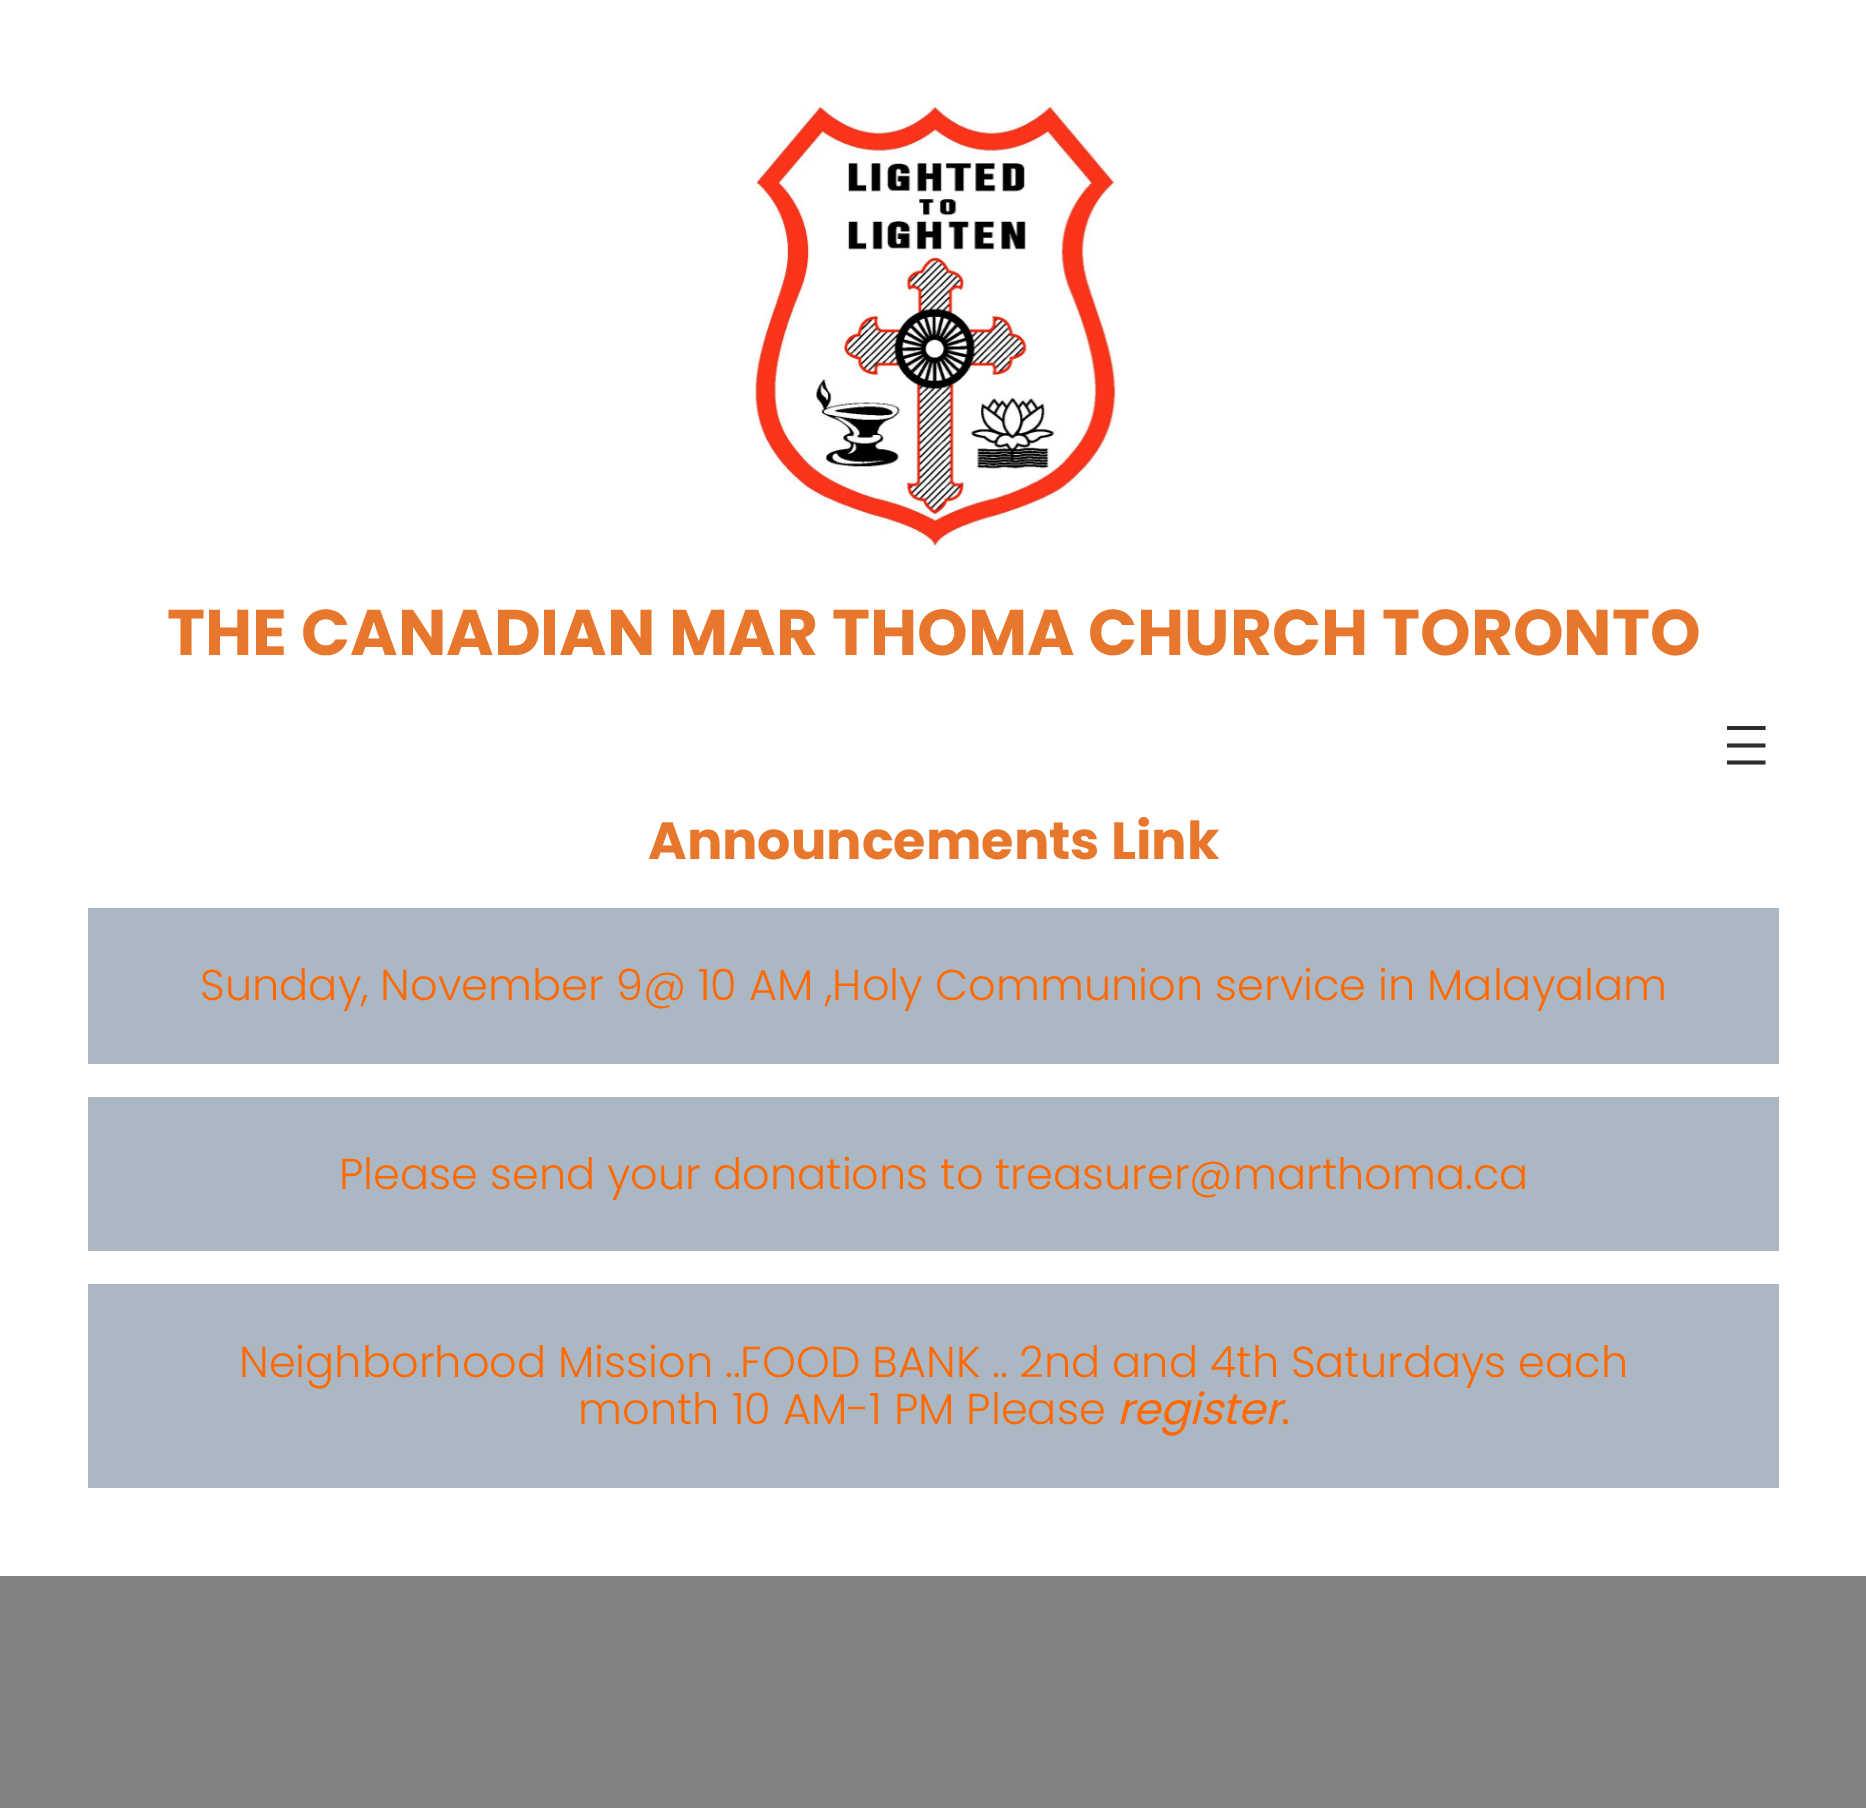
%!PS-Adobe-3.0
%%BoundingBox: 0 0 1866 1808
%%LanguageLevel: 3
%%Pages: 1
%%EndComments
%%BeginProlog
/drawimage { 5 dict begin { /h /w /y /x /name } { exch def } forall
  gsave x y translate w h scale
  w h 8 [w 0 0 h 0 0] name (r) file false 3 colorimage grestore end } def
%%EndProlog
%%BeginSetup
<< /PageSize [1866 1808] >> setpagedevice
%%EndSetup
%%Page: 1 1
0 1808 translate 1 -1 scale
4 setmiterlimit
1 setgray
0 0 1866 1808 rectfill
(images/1.raw) 755 101 364 449 drawimage
0.18 0.176 0.165 setrgbcolor
newpath 1727 726 moveto 1727 730 lineto 1765.5 730 lineto 1765.5 726 lineto closepath 1727 747.5 moveto 1765.5 747.5 lineto 1765.5 743.5 lineto 1727 743.5 lineto closepath 1727 764.5 moveto 1765.5 764.5 lineto 1765.5 760.5 lineto 1727 760.5 lineto closepath fill
0.671 0.722 0.765 setrgbcolor
88 908 1691 156 rectfill
88 1097 1691 154 rectfill
88 1284 1691 204 rectfill
0.51 0.506 0.502 setrgbcolor
0 1576 1866 232 rectfill
/Poppins-Bold [64.5 0 0 -64.5 0 0] selectfont
0.91 0.467 0.18 setrgbcolor
167 655 moveto (THE CANADIAN MAR THOMA CHURCH TORONTO) show
/Poppins-Bold [52.5 0 0 -52.5 0 0] selectfont
648 859 moveto (Announcements Link) show
/Poppins-Light [43.15 0 0 -43.15 0 0] selectfont
1 0.412 0 setrgbcolor
200 1000 moveto (Sunday, November 9@ 10 AM ,Holy Communion service in Malayalam) show
339 1189 moveto (Please send your donations to treasurer@marthoma.ca) show
239 1377 moveto (Neighborhood Mission ..FOOD BANK .. 2nd and 4th Saturdays each) show
578 1424 moveto (month 10 AM-1 PM Please) show
/Poppins-Italic [43.15 0 0 -43.15 0 0] selectfont
1117 1424 moveto (register) show
/Poppins-Regular [43.15 0 0 -43.15 0 0] selectfont
1281 1424 moveto (.) show
showpage
%%EOF
